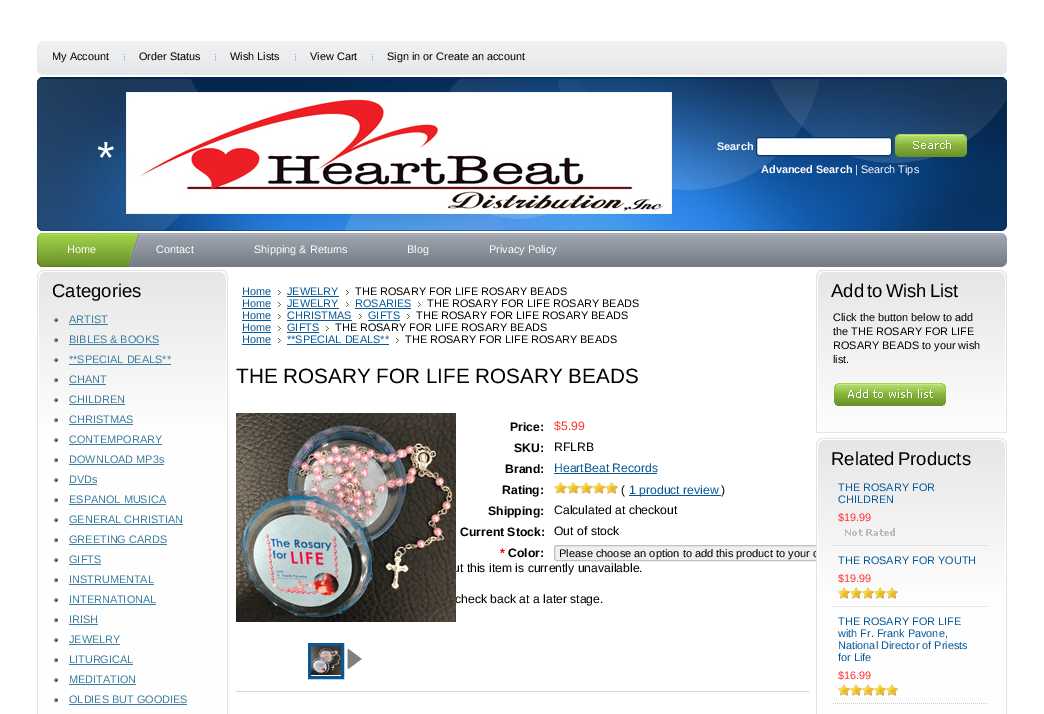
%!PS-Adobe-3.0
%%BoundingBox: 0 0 1044 714
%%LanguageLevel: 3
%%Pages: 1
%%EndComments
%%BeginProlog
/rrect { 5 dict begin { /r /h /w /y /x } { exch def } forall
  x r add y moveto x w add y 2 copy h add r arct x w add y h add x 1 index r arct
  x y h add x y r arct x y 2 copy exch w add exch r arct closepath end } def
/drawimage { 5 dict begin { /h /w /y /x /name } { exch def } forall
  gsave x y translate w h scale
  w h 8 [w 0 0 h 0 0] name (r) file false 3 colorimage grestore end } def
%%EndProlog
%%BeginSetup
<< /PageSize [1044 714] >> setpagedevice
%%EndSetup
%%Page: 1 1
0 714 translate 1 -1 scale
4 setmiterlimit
1 setgray
0 0 1044 714 rectfill
(images/1.raw) 37 41 970 34 drawimage
(images/2.raw) 124 54 1 7 drawimage
(images/2.raw) 215 54 1 7 drawimage
(images/2.raw) 295 54 1 7 drawimage
(images/2.raw) 372 54 1 7 drawimage
(images/3.raw) 37 77 970 154 drawimage
756.5 137.5 135 18 2.5 rrect gsave fill grestore
0.035 0.204 0.396 setrgbcolor
stroke
(images/4.raw) 895 134 72 23 drawimage
(images/5.raw) 37 233 970 34 drawimage
(images/6.raw) 37 270 191 444 drawimage
(images/7.raw) 54 318 4 4 drawimage
0.231 0.494 0.631 setrgbcolor
69 324 39 1 rectfill
(images/7.raw) 54 338 4 4 drawimage
69 344 90 1 rectfill
(images/7.raw) 54 358 4 4 drawimage
69 364 102 1 rectfill
(images/7.raw) 54 378 4 4 drawimage
69 384 37 1 rectfill
(images/7.raw) 54 398 4 4 drawimage
69 404 56 1 rectfill
(images/7.raw) 54 418 4 4 drawimage
69 424 64 1 rectfill
(images/7.raw) 54 438 4 4 drawimage
69 444 93 1 rectfill
(images/7.raw) 54 458 4 4 drawimage
69 464 95 1 rectfill
(images/7.raw) 54 478 4 4 drawimage
69 484 28 1 rectfill
(images/7.raw) 54 498 4 4 drawimage
69 504 97 1 rectfill
(images/7.raw) 54 518 4 4 drawimage
69 524 114 1 rectfill
(images/7.raw) 54 538 4 4 drawimage
69 544 98 1 rectfill
(images/7.raw) 54 558 4 4 drawimage
69 564 32 1 rectfill
(images/7.raw) 54 578 4 4 drawimage
69 584 85 1 rectfill
(images/7.raw) 54 598 4 4 drawimage
69 604 87 1 rectfill
(images/7.raw) 54 618 4 4 drawimage
69 624 29 1 rectfill
(images/7.raw) 54 638 4 4 drawimage
69 644 51 1 rectfill
(images/7.raw) 54 658 4 4 drawimage
69 664 64 1 rectfill
(images/7.raw) 54 678 4 4 drawimage
69 684 67 1 rectfill
(images/7.raw) 54 698 4 4 drawimage
69 704 118 1 rectfill
0.027 0.345 0.6 setrgbcolor
242 296 29 1 rectfill
(images/8.raw) 278 290 3 5 drawimage
287 296 52 1 rectfill
(images/8.raw) 346 290 3 5 drawimage
242 308 29 1 rectfill
(images/8.raw) 278 302 3 5 drawimage
287 308 52 1 rectfill
(images/8.raw) 346 302 3 5 drawimage
355 308 56 1 rectfill
(images/8.raw) 418 302 3 5 drawimage
242 320 29 1 rectfill
(images/8.raw) 278 314 3 5 drawimage
287 320 65 1 rectfill
(images/8.raw) 359 314 3 5 drawimage
368 320 32 1 rectfill
(images/8.raw) 407 314 3 5 drawimage
242 332 29 1 rectfill
(images/8.raw) 278 326 3 5 drawimage
287 332 32 1 rectfill
(images/8.raw) 326 326 3 5 drawimage
242 344 29 1 rectfill
(images/8.raw) 278 338 3 5 drawimage
287 344 102 1 rectfill
(images/8.raw) 396 338 3 5 drawimage
308.5 643.5 35 35 rectstroke
2 setlinewidth
310 645 32 32 rectstroke
(images/10.raw) 311 646 30 29 drawimage
(images/11.raw) 347 649 15 20 drawimage
554 473 103 1 rectfill
(images/12.raw) 554 482 64 12 drawimage
629 495 92 1 rectfill
0.937 setgray
554.5 545.5 297 15 2.5 rrect gsave fill grestore
0.729 0.757 0.78 setrgbcolor
1 setlinewidth
stroke
0.78 0.843 0.859 setrgbcolor
236 691 573 1 rectfill
(images/13.raw) 816 270 191 162 drawimage
0.902 setgray
816 432 191 1 rectfill
(images/14.raw) 834 383 112 23 drawimage
/LiberationSans-Regular [10.9 0 0 -10.9 0 0] selectfont
0 setgray
52 60 moveto (My Account) show
139 60 moveto (Order Status) show
230 60 moveto (Wish Lists) show
310 60 moveto (View Cart) show
387 60 moveto (Sign in or Create an account) show
/LiberationSans-Regular [45 0 0 -45 0 0] selectfont
1 setgray
97 173 moveto (*) show
/LiberationSans-Bold [10.9 0 0 -10.9 0 0] selectfont
717 150 moveto (Search) show
761 173 moveto (Advanced Search) show
/LiberationSans-Regular [10.9 0 0 -10.9 0 0] selectfont
855 173 moveto (| Search Tips) show
67 253 moveto (Home) show
156 253 moveto (Contact) show
254 253 moveto (Shipping & Returns) show
407 253 moveto (Blog) show
489 253 moveto (Privacy Policy) show
/LiberationSans-Regular [18.5 0 0 -18.5 0 0] selectfont
0 setgray
52 297 moveto (Categories) show
/LiberationSans-Regular [10.9 0 0 -10.9 0 0] selectfont
0.231 0.494 0.631 setrgbcolor
69 323 moveto (ARTIST) show
69 343 moveto (BIBLES & BOOKS) show
69 363 moveto (**SPECIAL DEALS**) show
69 383 moveto (CHANT) show
69 403 moveto (CHILDREN) show
69 423 moveto (CHRISTMAS) show
69 443 moveto (CONTEMPORARY) show
69 463 moveto (DOWNLOAD MP3s) show
69 483 moveto (DVDs) show
69 503 moveto (ESPANOL MUSICA) show
69 523 moveto (GENERAL CHRISTIAN) show
69 543 moveto (GREETING CARDS) show
69 563 moveto (GIFTS) show
69 583 moveto (INSTRUMENTAL) show
69 603 moveto (INTERNATIONAL) show
69 623 moveto (IRISH) show
69 643 moveto (JEWELRY) show
69 663 moveto (LITURGICAL) show
69 683 moveto (MEDITATION) show
69 703 moveto (OLDIES BUT GOODIES) show
0.027 0.345 0.6 setrgbcolor
242 295 moveto (Home) show
287 295 moveto (JEWELRY) show
0 setgray
355 295 moveto (THE ROSARY FOR LIFE ROSARY BEADS) show
0.027 0.345 0.6 setrgbcolor
242 307 moveto (Home) show
287 307 moveto (JEWELRY) show
355 307 moveto (ROSARIES) show
0 setgray
427 307 moveto (THE ROSARY FOR LIFE ROSARY BEADS) show
0.027 0.345 0.6 setrgbcolor
242 319 moveto (Home) show
287 319 moveto (CHRISTMAS) show
368 319 moveto (GIFTS) show
0 setgray
416 319 moveto (THE ROSARY FOR LIFE ROSARY BEADS) show
0.027 0.345 0.6 setrgbcolor
242 331 moveto (Home) show
287 331 moveto (GIFTS) show
0 setgray
335 331 moveto (THE ROSARY FOR LIFE ROSARY BEADS) show
0.027 0.345 0.6 setrgbcolor
242 343 moveto (Home) show
287 343 moveto (**SPECIAL DEALS**) show
0 setgray
405 343 moveto (THE ROSARY FOR LIFE ROSARY BEADS) show
/LiberationSans-Regular [20.7 0 0 -20.7 0 0] selectfont
236 383 moveto (THE ROSARY FOR LIFE ROSARY BEADS) show
/LiberationSans-Bold [12.2 0 0 -12.2 0 0] selectfont
510 431 moveto (Price:) show
/LiberationSans-Regular [12.2 0 0 -12.2 0 0] selectfont
1 0.2 0.2 setrgbcolor
554 430 moveto ($5.99) show
/LiberationSans-Bold [12.2 0 0 -12.2 0 0] selectfont
0 setgray
514 452 moveto (SKU:) show
/LiberationSans-Regular [12.2 0 0 -12.2 0 0] selectfont
554 451 moveto (RFLRB) show
/LiberationSans-Bold [12.2 0 0 -12.2 0 0] selectfont
505 473 moveto (Brand:) show
/LiberationSans-Regular [12.2 0 0 -12.2 0 0] selectfont
0.027 0.345 0.6 setrgbcolor
554 472 moveto (HeartBeat Records) show
/LiberationSans-Bold [12.2 0 0 -12.2 0 0] selectfont
0 setgray
502 494 moveto (Rating:) show
/LiberationSans-Regular [12.2 0 0 -12.2 0 0] selectfont
621 494 moveto (\() show
0.027 0.345 0.6 setrgbcolor
629 494 moveto (1 product review) show
0 setgray
721 494 moveto (\)) show
/LiberationSans-Bold [12.2 0 0 -12.2 0 0] selectfont
488 515 moveto (Shipping:) show
/LiberationSans-Regular [12.2 0 0 -12.2 0 0] selectfont
554 514 moveto (Calculated at checkout) show
/LiberationSans-Bold [12.2 0 0 -12.2 0 0] selectfont
460 536 moveto (Current Stock:) show
/LiberationSans-Regular [12.2 0 0 -12.2 0 0] selectfont
554 535 moveto (Out of stock) show
/LiberationSans-Bold [12.2 0 0 -12.2 0 0] selectfont
1 0 0 setrgbcolor
500 557 moveto (*) show
0 setgray
508 557 moveto (Color:) show
/LiberationSans-Regular [11 0 0 -11 0 0] selectfont
559 557 moveto (Please choose an option to add this product to your c) show
/LiberationSans-Regular [12.2 0 0 -12.2 0 0] selectfont
453 572 moveto (ut this item is currently unavailable.) show
455 603 moveto (check back at a later stage.) show
(images/9.raw) 236 413 220 209 drawimage
/LiberationSans-Regular [18.5 0 0 -18.5 0 0] selectfont
831 297 moveto -2 0 32 (Add to Wish List) widthshow
/LiberationSans-Regular [10.9 0 0 -10.9 0 0] selectfont
833 321 moveto (Click the button below to add) show
833 335 moveto (the THE ROSARY FOR LIFE) show
833 349 moveto (ROSARY BEADS to your wish) show
833 363 moveto (list.) show
(images/15.raw) 816 438 191 276 drawimage
/LiberationSans-Regular [18.5 0 0 -18.5 0 0] selectfont
831 465 moveto -2 0 32 (Related Products) widthshow
(images/16.raw) 833 545 155 1 drawimage
/LiberationSans-Regular [10.9 0 0 -10.9 0 0] selectfont
0.027 0.345 0.6 setrgbcolor
838 491 moveto (THE ROSARY FOR) show
838 503 moveto (CHILDREN) show
1 0.2 0.2 setrgbcolor
838 521 moveto ($19.99) show
(images/17.raw) 845 528 50 8 drawimage
(images/18.raw) 833 606 155 1 drawimage
0.027 0.345 0.6 setrgbcolor
838 564 moveto (THE ROSARY FOR YOUTH) show
1 0.2 0.2 setrgbcolor
838 582 moveto ($19.99) show
(images/19.raw) 838 587 60 12 drawimage
(images/18.raw) 833 703 155 1 drawimage
0.027 0.345 0.6 setrgbcolor
838 625 moveto (THE ROSARY FOR LIFE) show
838 637 moveto (with Fr. Frank Pavone,) show
838 649 moveto (National Director of Priests) show
838 661 moveto (for Life) show
1 0.2 0.2 setrgbcolor
838 679 moveto ($16.99) show
(images/20.raw) 838 684 60 12 drawimage
showpage
%%EOF
